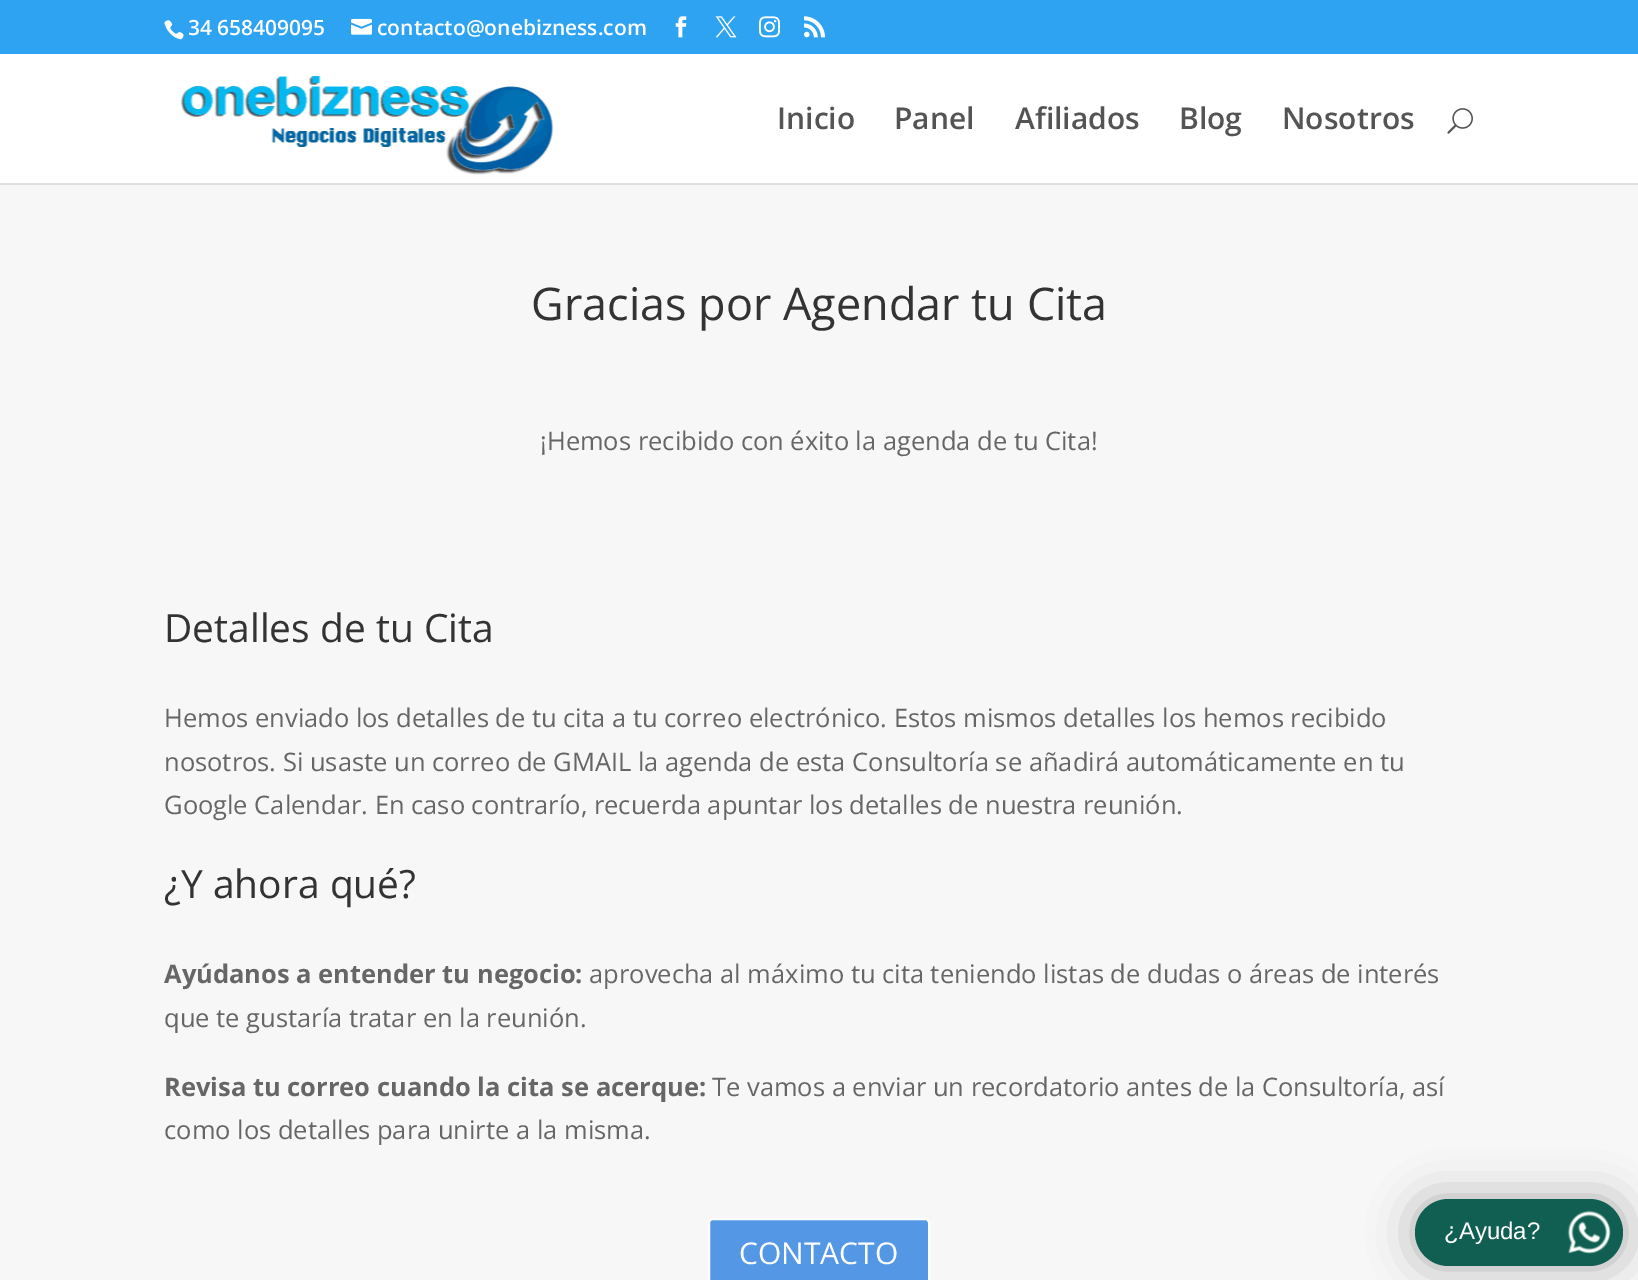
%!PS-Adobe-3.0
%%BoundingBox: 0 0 1638 1280
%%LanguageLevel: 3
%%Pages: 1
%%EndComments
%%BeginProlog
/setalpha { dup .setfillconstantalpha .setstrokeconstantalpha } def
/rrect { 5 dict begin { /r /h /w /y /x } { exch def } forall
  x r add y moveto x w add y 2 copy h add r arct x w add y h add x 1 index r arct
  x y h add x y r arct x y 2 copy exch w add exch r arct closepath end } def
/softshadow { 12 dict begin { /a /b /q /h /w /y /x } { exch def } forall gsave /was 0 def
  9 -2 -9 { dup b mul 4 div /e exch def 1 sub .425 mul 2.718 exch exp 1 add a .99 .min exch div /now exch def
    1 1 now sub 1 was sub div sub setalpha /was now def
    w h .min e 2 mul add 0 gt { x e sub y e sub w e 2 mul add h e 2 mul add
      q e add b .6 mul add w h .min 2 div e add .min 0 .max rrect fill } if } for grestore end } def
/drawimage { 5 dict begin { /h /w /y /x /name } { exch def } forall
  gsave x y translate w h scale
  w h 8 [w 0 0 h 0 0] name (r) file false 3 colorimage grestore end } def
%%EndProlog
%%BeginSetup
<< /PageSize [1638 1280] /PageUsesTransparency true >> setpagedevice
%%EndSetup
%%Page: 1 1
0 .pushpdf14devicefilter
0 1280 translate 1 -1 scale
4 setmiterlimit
1 setgray
0 0 1638 1280 rectfill
0.18 0.639 0.949 setrgbcolor
0 0 1638 54 rectfill
(images/1.raw) 164 20 20 20 drawimage
(images/2.raw) 351 18 21 17 drawimage
(images/3.raw) 675 16 12 22 drawimage
(images/4.raw) 715 16 22 22 drawimage
(images/5.raw) 759 16 21 22 drawimage
(images/6.raw) 804 16 21 22 drawimage
0.871 setgray
0 183 1638 2 rectfill
(images/7.raw) 180 76 374 99 drawimage
(images/8.raw) 1447 108 26 26 drawimage
0.969 setgray
0 185 1638 1095 rectfill
0.329 0.592 0.898 setrgbcolor
709 1219 220 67 4 rrect gsave fill grestore
1 setgray
2 setlinewidth
stroke
0 setgray
1415 1199 208 67 33.5 22.5 0.3 softshadow
0.067 0.369 0.322 setrgbcolor
1415 1199 208 67 33.5 rrect fill
(images/9.raw) 1567 1210 44 44 drawimage
/OpenSans-SemiBold [21 0 0 -21 0 0] selectfont
1 setgray
188 35 moveto (34 658409095) show
377 35 moveto (contacto@onebizness.com) show
/OpenSans-SemiBold [30 0 0 -30 0 0] selectfont
0.329 setgray
777 129 moveto (Inicio) show
894 129 moveto (Panel) show
1015 129 moveto (Afiliados) show
1179 129 moveto (Blog) show
1282 129 moveto (Nosotros) show
/OpenSans-Regular [45 0 0 -45 0 0] selectfont
0.2 setgray
531 320 moveto (Gracias por Agendar tu Cita) show
/OpenSans-Regular [25.5 0 0 -25.5 0 0] selectfont
0.4 setgray
540 450 moveto (¡Hemos recibido con éxito la agenda de tu Cita!) show
/OpenSans-Regular [39 0 0 -39 0 0] selectfont
0.2 setgray
164 642 moveto (Detalles de tu Cita) show
/OpenSans-Regular [25.5 0 0 -25.5 0 0] selectfont
0.4 setgray
164 727 moveto (Hemos enviado los detalles de tu cita a tu correo electrónico. Estos mismos detalles los hemos recibido) show
164 771 moveto (nosotros. Si usaste un correo de GMAIL la agenda de esta Consultoría se añadirá automáticamente en tu) show
164 814 moveto (Google Calendar. En caso contrarío, recuerda apuntar los detalles de nuestra reunión.) show
/OpenSans-Regular [39 0 0 -39 0 0] selectfont
0.2 setgray
164 898 moveto (¿Y ahora qué?) show
/OpenSans-Bold [25.5 0 0 -25.5 0 0] selectfont
0.4 setgray
164 983 moveto (Ayúdanos a entender tu negocio:) show
/OpenSans-Regular [25.5 0 0 -25.5 0 0] selectfont
589 983 moveto (aprovecha al máximo tu cita teniendo listas de dudas o áreas de interés) show
164 1027 moveto (que te gustaría tratar en la reunión.) show
/OpenSans-Bold [25.5 0 0 -25.5 0 0] selectfont
164 1096 moveto (Revisa tu correo cuando la cita se acerque:) show
/OpenSans-Regular [25.5 0 0 -25.5 0 0] selectfont
712 1096 moveto (Te vamos a enviar un recordatorio antes de la Consultoría, así) show
164 1139 moveto (como los detalles para unirte a la misma.) show
/OpenSans-Regular [30 0 0 -30 0 0] selectfont
1 setgray
739 1264 moveto (CONTACTO) show
/LiberationSans-Regular [24 0 0 -24 0 0] selectfont
1444 1239 moveto (¿Ayuda?) show
.poppdf14devicefilter showpage
%%EOF
